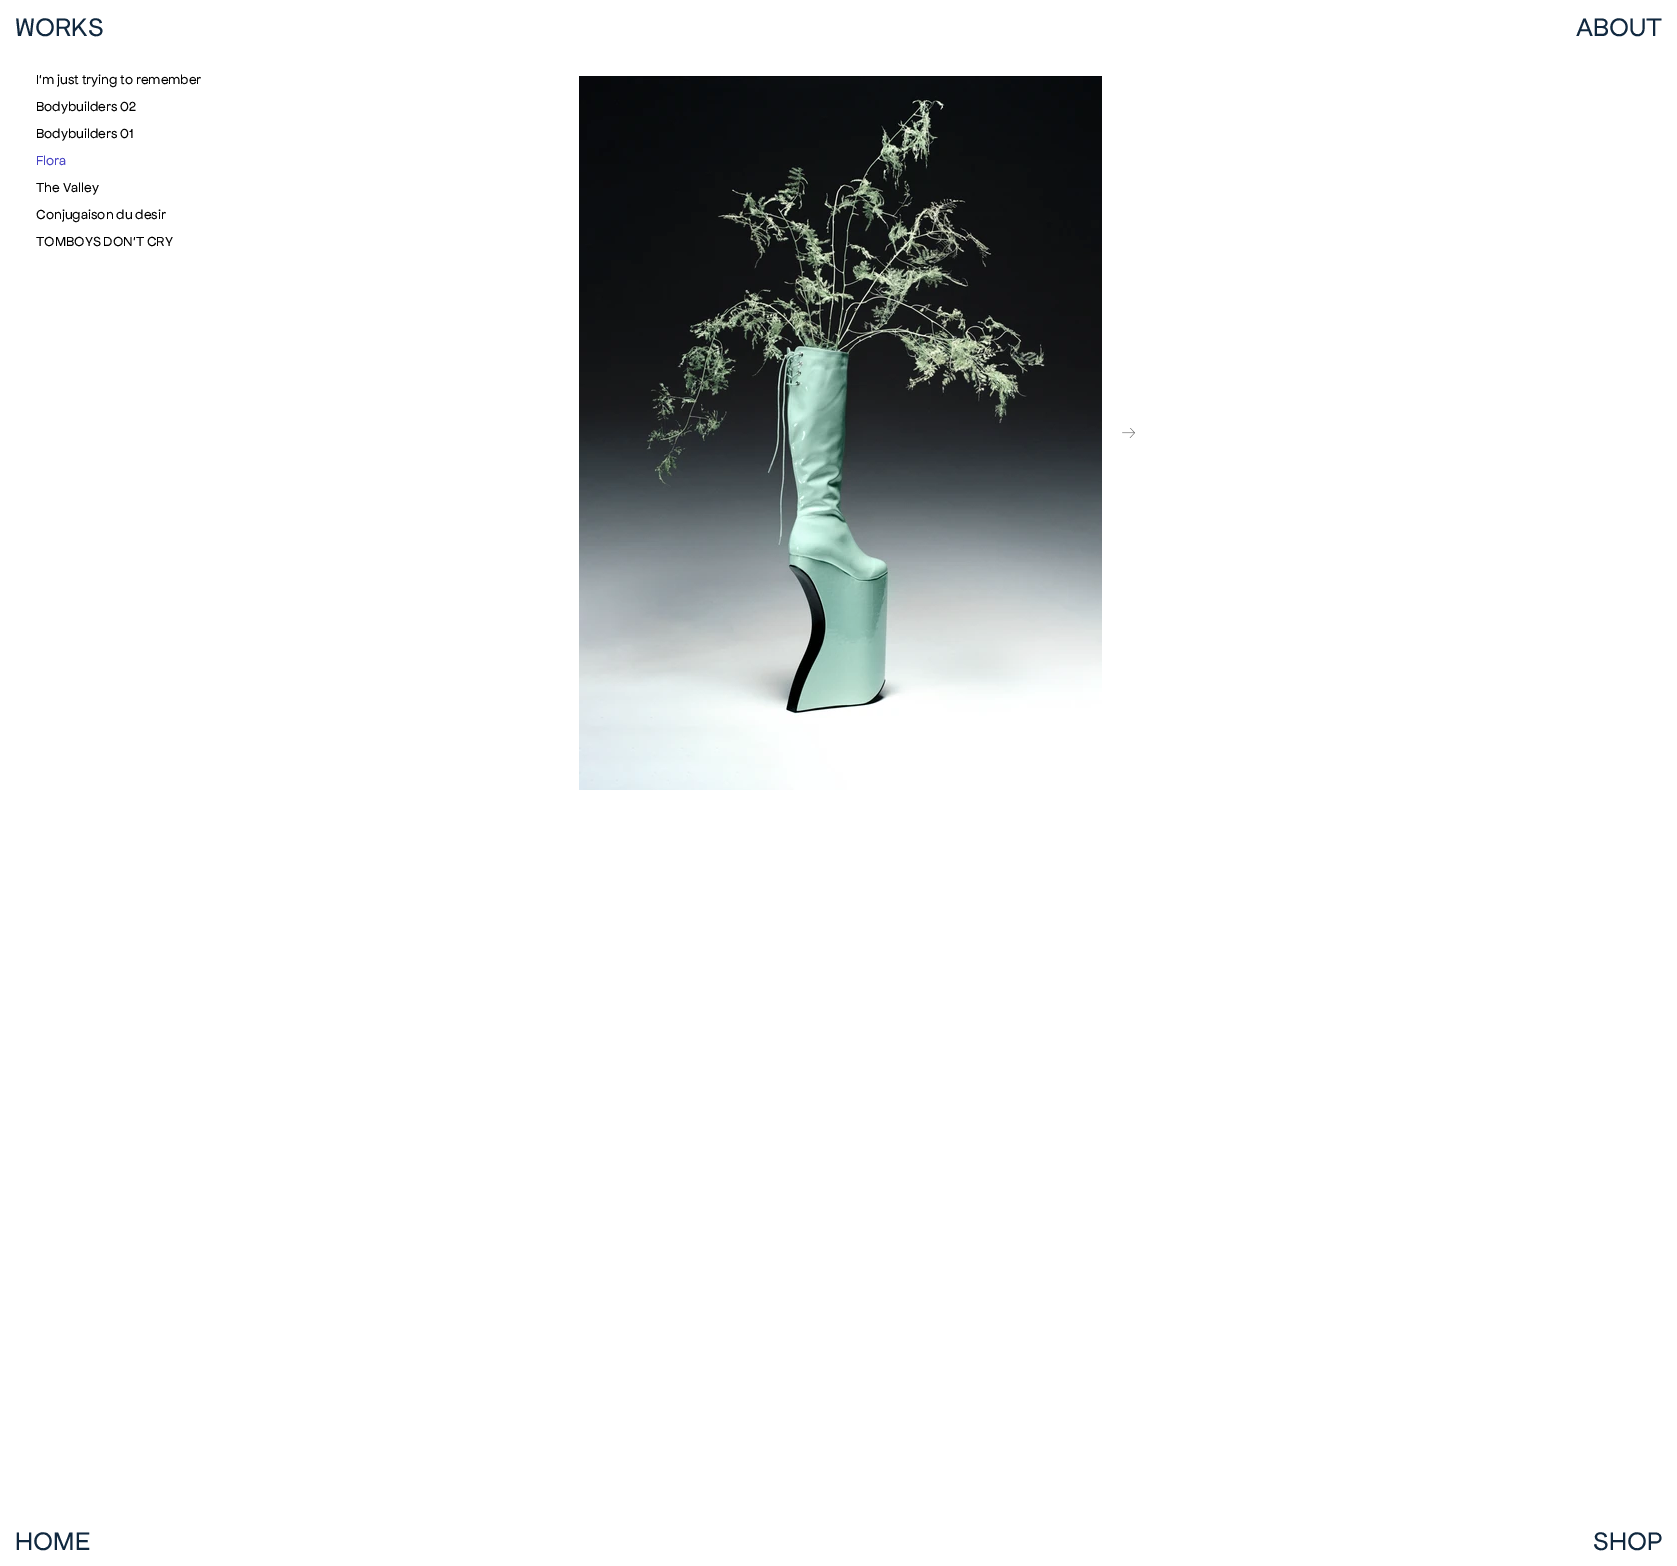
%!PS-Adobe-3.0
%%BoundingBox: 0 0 1677 1566
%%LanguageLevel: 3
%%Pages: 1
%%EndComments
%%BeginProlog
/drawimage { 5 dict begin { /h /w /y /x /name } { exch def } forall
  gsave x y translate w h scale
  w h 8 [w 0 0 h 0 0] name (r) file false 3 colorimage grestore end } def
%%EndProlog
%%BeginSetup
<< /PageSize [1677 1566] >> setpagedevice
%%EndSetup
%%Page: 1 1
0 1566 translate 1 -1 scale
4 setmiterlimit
1 setgray
0 0 1677 1566 rectfill
(images/1.raw) 579 76 523 714 drawimage
(images/2.raw) 1122 428 13 10 drawimage
/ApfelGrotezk-Regular [27 0 0 -27 0 0] selectfont
0.063 0.157 0.247 setrgbcolor
15 36 moveto (WORKS) show
1576 36 moveto (ABOUT) show
/ApfelGrotezk-Regular [14 0 0 -14 0 0] selectfont
0 setgray
36 84 moveto (I'm just trying to remember) show
36 111 moveto (Bodybuilders 02) show
36 138 moveto (Bodybuilders 01) show
0.278 0.263 0.773 setrgbcolor
36 165 moveto (Flora) show
0 setgray
36 192 moveto (The Valley) show
36 219 moveto (Conjugaison du desir) show
36 246 moveto (TOMBOYS DON'T CRY) show
/ApfelGrotezk-Regular [27 0 0 -27 0 0] selectfont
0.063 0.157 0.247 setrgbcolor
15 1550 moveto (HOME) show
1593 1550 moveto (SHOP) show
showpage
%%EOF
